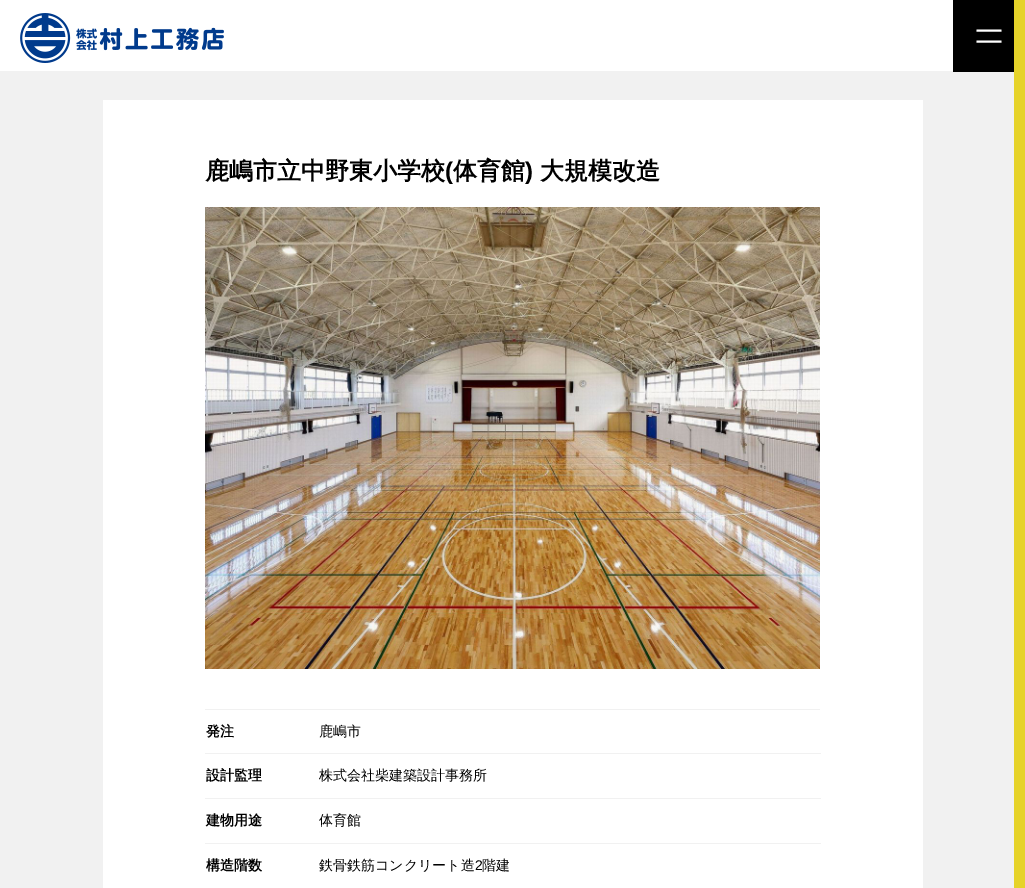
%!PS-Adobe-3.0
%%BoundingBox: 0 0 1025 888
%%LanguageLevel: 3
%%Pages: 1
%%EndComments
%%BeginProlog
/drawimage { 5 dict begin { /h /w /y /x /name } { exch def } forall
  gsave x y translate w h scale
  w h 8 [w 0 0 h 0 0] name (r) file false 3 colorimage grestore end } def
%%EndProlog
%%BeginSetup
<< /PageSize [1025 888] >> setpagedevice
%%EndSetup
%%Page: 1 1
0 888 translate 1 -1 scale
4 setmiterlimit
0.945 setgray
0 0 1025 888 rectfill
1 setgray
0 0 953 71 rectfill
(images/1.raw) 20 13 204 50 drawimage
0 setgray
953 0 61 72 rectfill
1 setgray
2 setlinewidth
newpath 976.5 30.5 moveto 1001.5 30.5 lineto 976.5 41.5 moveto 1001.5 41.5 lineto stroke
0.902 0.827 0.161 setrgbcolor
1014 0 11 888 rectfill
1 setgray
103 100 820 788 rectfill
(images/2.raw) 205 207 615 462 drawimage
0.945 setgray
205 709 615 1 rectfill
205 753 616 1 rectfill
205 798 616 1 rectfill
205 843 616 1 rectfill
/WenQuanYiZenHei-Bold [24 0 0 -24 0 0] selectfont
0 setgray
205 179 moveto (鹿嶋市立中野東小学校) show
/LiberationSans-Bold [24 0 0 -24 0 0] selectfont
445 179 moveto (\() show
/WenQuanYiZenHei-Bold [24 0 0 -24 0 0] selectfont
453 179 moveto (体育館) show
/LiberationSans-Bold [24 0 0 -24 0 0] selectfont
525 179 moveto (\)) show
/WenQuanYiZenHei-Bold [24 0 0 -24 0 0] selectfont
540 179 moveto (大規模改造) show
/WenQuanYiZenHei-Bold [14 0 0 -14 0 0] selectfont
206 736 moveto (発注) show
/WenQuanYiZenHei-Medium [14 0 0 -14 0 0] selectfont
319 736 moveto (鹿嶋市) show
/WenQuanYiZenHei-Bold [14 0 0 -14 0 0] selectfont
206 780 moveto (設計監理) show
/WenQuanYiZenHei-Medium [14 0 0 -14 0 0] selectfont
319 780 moveto (株式会社柴建築設計事務所) show
/WenQuanYiZenHei-Bold [14 0 0 -14 0 0] selectfont
206 825 moveto (建物用途) show
/WenQuanYiZenHei-Medium [14 0 0 -14 0 0] selectfont
319 825 moveto (体育館) show
/WenQuanYiZenHei-Bold [14 0 0 -14 0 0] selectfont
206 870 moveto (構造階数) show
/WenQuanYiZenHei-Medium [14 0 0 -14 0 0] selectfont
319 870 moveto (鉄骨鉄筋コンクリート造) show
/LiberationSans-Regular [14 0 0 -14 0 0] selectfont
475 870 moveto (2) show
/WenQuanYiZenHei-Medium [14 0 0 -14 0 0] selectfont
482 870 moveto (階建) show
showpage
%%EOF
